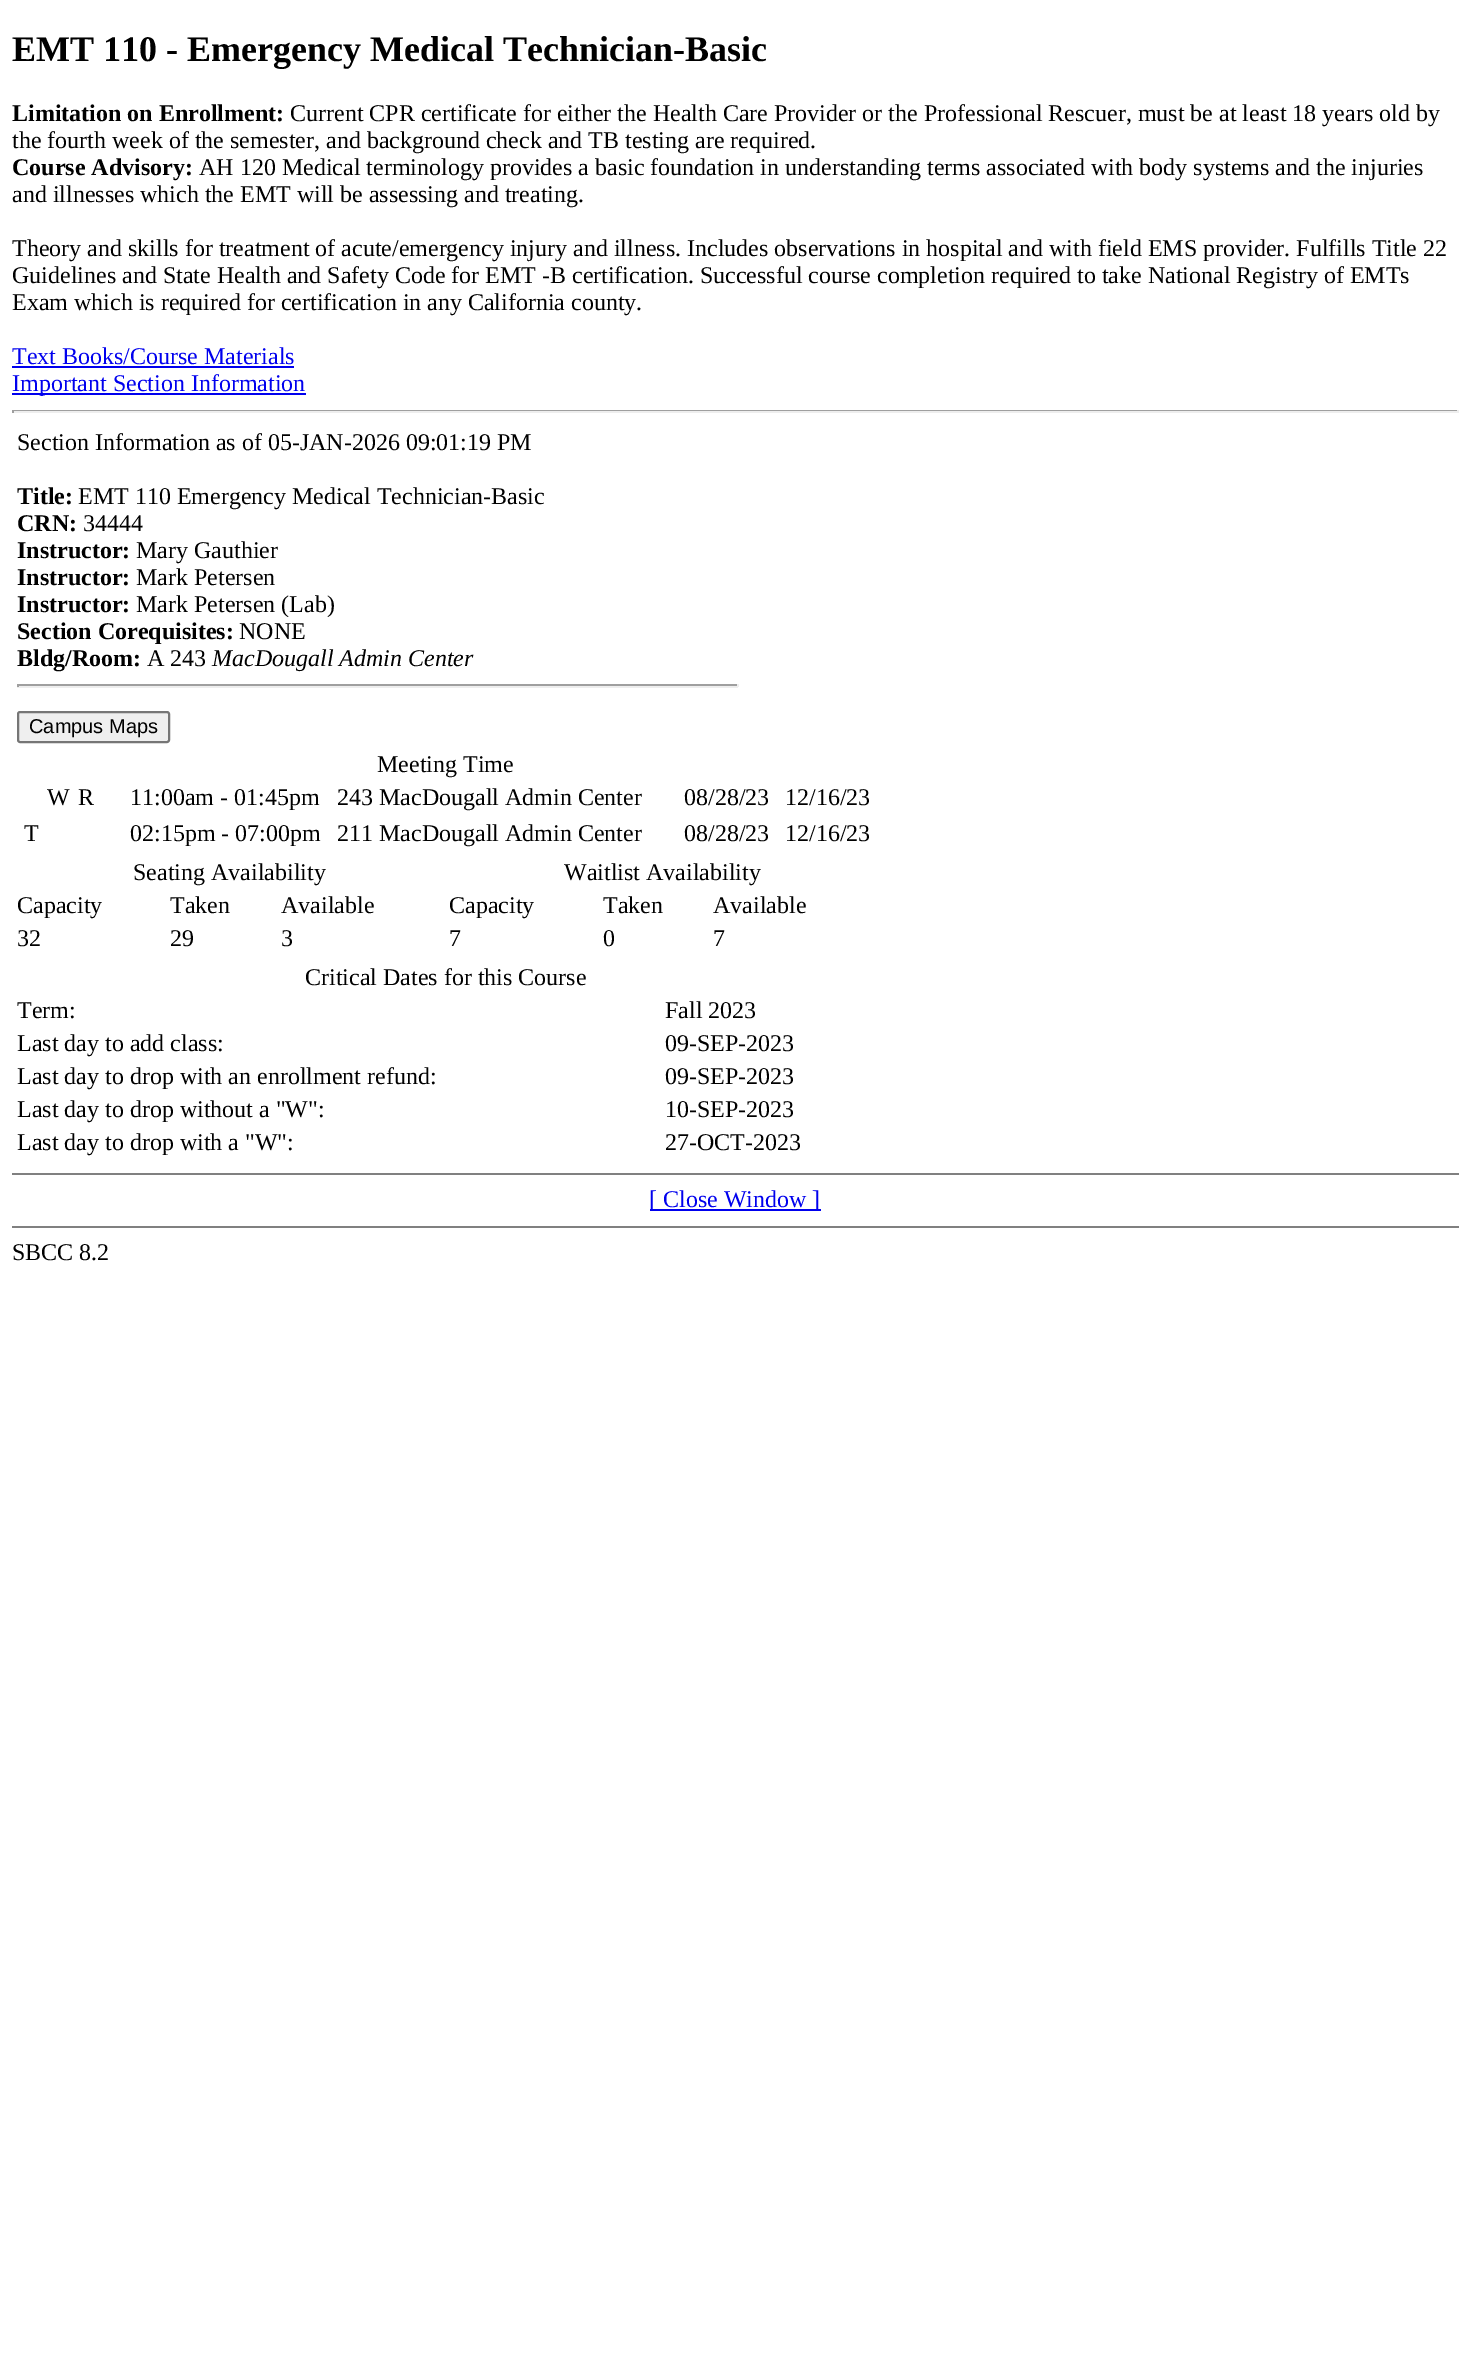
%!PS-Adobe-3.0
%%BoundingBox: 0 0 1469 2363
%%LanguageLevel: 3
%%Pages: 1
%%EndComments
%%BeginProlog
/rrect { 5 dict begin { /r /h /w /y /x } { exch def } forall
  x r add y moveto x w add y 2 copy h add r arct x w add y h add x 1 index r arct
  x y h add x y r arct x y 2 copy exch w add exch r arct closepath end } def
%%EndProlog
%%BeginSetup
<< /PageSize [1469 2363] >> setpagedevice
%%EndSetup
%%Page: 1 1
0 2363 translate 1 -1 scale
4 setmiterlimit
1 setgray
0 0 1469 2363 rectfill
0 0 0.933 setrgbcolor
12 366 282 2 rectfill
12 393 294 2 rectfill
0.624 setgray
12 410 1446 1 rectfill
0.933 setgray
1457 410 2 3 rectfill
12 411 1446 2 rectfill
0.624 setgray
12 410 2 3 rectfill
17 684 721 2 rectfill
0.933 setgray
737 684 2 3 rectfill
17 686 721 2 rectfill
0.624 setgray
17 684 2 3 rectfill
0.937 setgray
18 712 151 30 2 rrect gsave fill grestore
0.463 setgray
2 setlinewidth
stroke
0.502 setgray
12 1173 1447 2 rectfill
0 0 0.933 setrgbcolor
650 1209 171 2 rectfill
0.502 setgray
12 1226 1447 2 rectfill
/LiberationSerif-Bold [36 0 0 -36 0 0] selectfont
0 setgray
12 61 moveto (EMT 110 - Emergency Medical Technician-Basic) show
/LiberationSerif-Bold [24 0 0 -24 0 0] selectfont
12 121 moveto (Limitation on Enrollment:) show
/LiberationSerif-Regular [24 0 0 -24 0 0] selectfont
290 121 moveto (Current CPR certificate for either the Health Care Provider or the Professional Rescuer, must be at least 18 years old by) show
12 148 moveto (the fourth week of the semester, and background check and TB testing are required.) show
/LiberationSerif-Bold [24 0 0 -24 0 0] selectfont
12 175 moveto (Course Advisory:) show
/LiberationSerif-Regular [24 0 0 -24 0 0] selectfont
199 175 moveto (AH 120 Medical terminology provides a basic foundation in understanding terms associated with body systems and the injuries) show
12 202 moveto (and illnesses which the EMT will be assessing and treating.) show
12 256 moveto (Theory and skills for treatment of acute/emergency injury and illness. Includes observations in hospital and with field EMS provider. Fulfills Title 22) show
12 283 moveto (Guidelines and State Health and Safety Code for EMT -B certification. Successful course completion required to take National Registry of EMTs) show
12 310 moveto (Exam which is required for certification in any California county.) show
0 0 0.933 setrgbcolor
12 364 moveto (Text Books/Course Materials) show
12 391 moveto (Important Section Information) show
0 setgray
17 450 moveto (Section Information as of 05-JAN-2026 09:01:19 PM) show
/LiberationSerif-Bold [24 0 0 -24 0 0] selectfont
17 504 moveto (Title:) show
/LiberationSerif-Regular [24 0 0 -24 0 0] selectfont
78 504 moveto (EMT 110 Emergency Medical Technician-Basic) show
/LiberationSerif-Bold [24 0 0 -24 0 0] selectfont
17 531 moveto (CRN:) show
/LiberationSerif-Regular [24 0 0 -24 0 0] selectfont
83 531 moveto (34444) show
/LiberationSerif-Bold [24 0 0 -24 0 0] selectfont
17 558 moveto (Instructor:) show
/LiberationSerif-Regular [24 0 0 -24 0 0] selectfont
136 558 moveto (Mary Gauthier) show
/LiberationSerif-Bold [24 0 0 -24 0 0] selectfont
17 585 moveto (Instructor:) show
/LiberationSerif-Regular [24 0 0 -24 0 0] selectfont
136 585 moveto (Mark Petersen) show
/LiberationSerif-Bold [24 0 0 -24 0 0] selectfont
17 612 moveto (Instructor:) show
/LiberationSerif-Regular [24 0 0 -24 0 0] selectfont
136 612 moveto (Mark Petersen \(Lab\)) show
/LiberationSerif-Bold [24 0 0 -24 0 0] selectfont
17 639 moveto (Section Corequisites:) show
/LiberationSerif-Regular [24 0 0 -24 0 0] selectfont
239 639 moveto (NONE) show
/LiberationSerif-Bold [24 0 0 -24 0 0] selectfont
17 666 moveto (Bldg/Room:) show
/LiberationSerif-Regular [24 0 0 -24 0 0] selectfont
147 666 moveto (A 243) show
/LiberationSerif-Italic [24 0 0 -24 0 0] selectfont
212 666 moveto (MacDougall Admin Center) show
/LiberationSans-Regular [20 0 0 -20 0 0] selectfont
29 733 moveto (Campus Maps) show
/LiberationSerif-Regular [24 0 0 -24 0 0] selectfont
377 772 moveto (Meeting Time) show
47 805 moveto (W) show
78 805 moveto (R) show
130 805 moveto (11:00am - 01:45pm) show
337 805 moveto (243 MacDougall Admin Center) show
684 805 moveto (08/28/23) show
785 805 moveto (12/16/23) show
24 841 moveto (T) show
130 841 moveto (02:15pm - 07:00pm) show
337 841 moveto (211 MacDougall Admin Center) show
684 841 moveto (08/28/23) show
785 841 moveto (12/16/23) show
133 880 moveto (Seating Availability) show
564 880 moveto (Waitlist Availability) show
17 913 moveto (Capacity) show
170 913 moveto (Taken) show
281 913 moveto (Available) show
449 913 moveto (Capacity) show
603 913 moveto (Taken) show
713 913 moveto (Available) show
17 946 moveto (32) show
170 946 moveto (29) show
281 946 moveto (3) show
449 946 moveto (7) show
603 946 moveto (0) show
713 946 moveto (7) show
305 985 moveto (Critical Dates for this Course) show
17 1018 moveto (Term:) show
665 1018 moveto (Fall 2023) show
17 1051 moveto (Last day to add class:) show
665 1051 moveto (09-SEP-2023) show
17 1084 moveto (Last day to drop with an enrollment refund:) show
665 1084 moveto (09-SEP-2023) show
17 1117 moveto (Last day to drop without a "W":) show
665 1117 moveto (10-SEP-2023) show
17 1150 moveto (Last day to drop with a "W":) show
665 1150 moveto (27-OCT-2023) show
0 0 0.933 setrgbcolor
649 1207 moveto ([ Close Window ]) show
0 setgray
12 1260 moveto (SBCC 8.2) show
showpage
%%EOF
